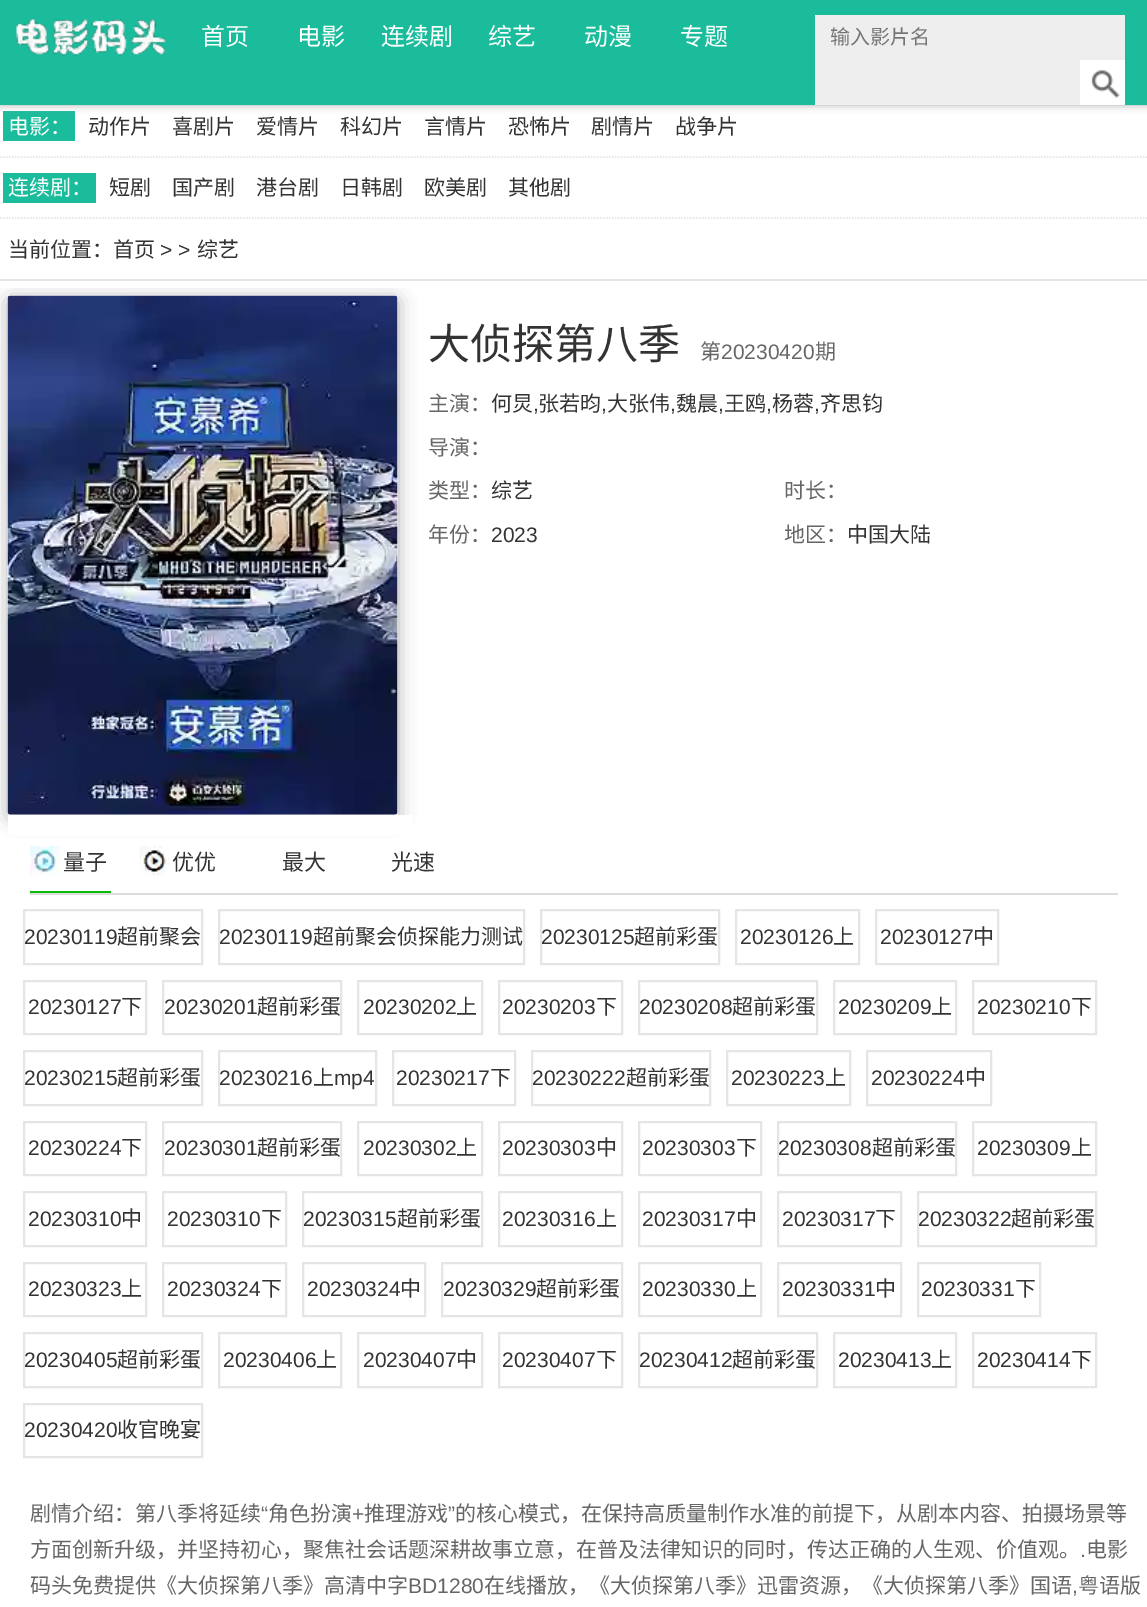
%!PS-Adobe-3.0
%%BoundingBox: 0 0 1147 1607
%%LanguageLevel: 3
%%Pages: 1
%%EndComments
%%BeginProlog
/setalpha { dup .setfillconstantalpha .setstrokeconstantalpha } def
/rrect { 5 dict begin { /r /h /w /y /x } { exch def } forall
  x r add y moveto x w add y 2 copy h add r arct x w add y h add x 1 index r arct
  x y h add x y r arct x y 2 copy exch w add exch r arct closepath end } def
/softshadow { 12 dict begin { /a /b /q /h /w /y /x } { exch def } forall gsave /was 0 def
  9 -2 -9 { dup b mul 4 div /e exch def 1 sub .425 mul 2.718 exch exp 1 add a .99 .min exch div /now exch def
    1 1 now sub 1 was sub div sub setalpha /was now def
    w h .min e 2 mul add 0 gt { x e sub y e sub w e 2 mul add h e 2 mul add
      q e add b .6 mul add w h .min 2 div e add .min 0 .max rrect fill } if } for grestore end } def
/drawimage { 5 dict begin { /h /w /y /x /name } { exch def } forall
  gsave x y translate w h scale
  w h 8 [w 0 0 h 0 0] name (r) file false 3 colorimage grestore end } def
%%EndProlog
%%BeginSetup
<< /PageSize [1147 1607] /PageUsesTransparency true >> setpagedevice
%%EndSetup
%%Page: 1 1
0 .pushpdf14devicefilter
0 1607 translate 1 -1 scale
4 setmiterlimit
1 setgray
0 0 1147 1607 rectfill
0.102 0.737 0.612 setrgbcolor
3 111 72 30 rectfill
0.667 setgray
0 0 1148 105 0 4 1 softshadow
0.102 0.737 0.612 setrgbcolor
0 0 1147 105 rectfill
(images/1.raw) 15 18 151 38 drawimage
0.933 setgray
815 15 310 90 rectfill
1 setgray
1080 60 45 45 rectfill
(images/2.raw) 1091 70 29 28 drawimage
0.89 setgray
1.5 setlinewidth
[1.5 1.5] 0 setdash
newpath 0 157 moveto 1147.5 157 lineto stroke
newpath 0 218 moveto 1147.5 218 lineto stroke
0.102 0.737 0.612 setrgbcolor
3 173 93 30 rectfill
0.898 setgray
0 279 1147 2 rectfill
gsave
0 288 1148 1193 rectclip
0.361 setgray
8 299 390 519 3 9 0.5 softshadow
grestore
(images/3.raw) 7 295 391 520 drawimage
1 setgray
8 815 404 20 rectfill
0.867 setgray
30 893 1088 2 rectfill
(images/4.raw) 30 846 30 30 drawimage
0.035 0.733 0.027 setrgbcolor
30 891 81 2 rectfill
(images/5.raw) 139 846 31 30 drawimage
0.898 setgray
2 setlinewidth
[] 0 setdash
24 910 178 54 rectstroke
219 910 305 54 rectstroke
541 910 178 54 rectstroke
736 910 123 54 rectstroke
876 910 122 54 rectstroke
24 981 122 53 rectstroke
163 981 178 53 rectstroke
358 981 124 53 rectstroke
499 981 123 53 rectstroke
639 981 178 53 rectstroke
834 981 122 53 rectstroke
973 981 123 53 rectstroke
24 1051 178 54 rectstroke
219 1051 157 54 rectstroke
393 1051 122 54 rectstroke
532 1051 178 54 rectstroke
727 1051 123 54 rectstroke
867 1051 124 54 rectstroke
24 1122 122 53 rectstroke
163 1122 178 53 rectstroke
358 1122 124 53 rectstroke
499 1122 123 53 rectstroke
639 1122 122 53 rectstroke
778 1122 178 53 rectstroke
973 1122 123 53 rectstroke
24 1192 122 54 rectstroke
163 1192 123 54 rectstroke
303 1192 179 54 rectstroke
499 1192 123 54 rectstroke
639 1192 122 54 rectstroke
778 1192 123 54 rectstroke
918 1192 178 54 rectstroke
24 1263 122 53 rectstroke
163 1263 123 53 rectstroke
303 1263 122 53 rectstroke
442 1263 180 53 rectstroke
639 1263 122 53 rectstroke
778 1263 123 53 rectstroke
918 1263 122 53 rectstroke
24 1333 178 54 rectstroke
219 1333 122 54 rectstroke
358 1333 124 54 rectstroke
499 1333 123 54 rectstroke
639 1333 178 54 rectstroke
834 1333 122 54 rectstroke
973 1333 123 54 rectstroke
24 1404 178 53 rectstroke
/NotoSansCJKSC-Regular [24 0 0 -24 0 0] selectfont
1 setgray
201 45 moveto (首页) show
297 45 moveto (电影) show
381 45 moveto (连续剧) show
488 45 moveto (综艺) show
584 45 moveto (动漫) show
680 45 moveto (专题) show
/NotoSansCJKSC-Regular [20 0 0 -20 0 0] selectfont
0.459 setgray
830 44 moveto (输入影片名) show
/NotoSansCJKSC-Regular [21 0 0 -21 0 0] selectfont
1 setgray
8 134 moveto (电影：) show
0.2 setgray
88 134 moveto (动作片) show
172 134 moveto (喜剧片) show
256 134 moveto (爱情片) show
340 134 moveto (科幻片) show
424 134 moveto (言情片) show
508 134 moveto (恐怖片) show
591 134 moveto (剧情片) show
675 134 moveto (战争片) show
1 setgray
8 195 moveto (连续剧：) show
0.2 setgray
109 195 moveto (短剧) show
172 195 moveto (国产剧) show
256 195 moveto (港台剧) show
340 195 moveto (日韩剧) show
424 195 moveto (欧美剧) show
508 195 moveto (其他剧) show
8 257 moveto (当前位置：首页) show
/LiberationSans-Regular [21 0 0 -21 0 0] selectfont
160 257 moveto (> >) show
/NotoSansCJKSC-Regular [21 0 0 -21 0 0] selectfont
197 257 moveto (综艺) show
/NotoSansCJKSC-Regular [42 0 0 -42 0 0] selectfont
428 359 moveto (大侦探第八季) show
/NotoSansCJKSC-Regular [21 0 0 -21 0 0] selectfont
0.4 setgray
700 359 moveto (第) show
/LiberationSans-Regular [21 0 0 -21 0 0] selectfont
721 359 moveto (20230420) show
/NotoSansCJKSC-Regular [21 0 0 -21 0 0] selectfont
815 359 moveto (期) show
428 411 moveto (主演：) show
0.2 setgray
491 411 moveto (何炅) show
/LiberationSans-Regular [21 0 0 -21 0 0] selectfont
533 411 moveto (,) show
/NotoSansCJKSC-Regular [21 0 0 -21 0 0] selectfont
538 411 moveto (张若昀) show
/LiberationSans-Regular [21 0 0 -21 0 0] selectfont
601 411 moveto (,) show
/NotoSansCJKSC-Regular [21 0 0 -21 0 0] selectfont
607 411 moveto (大张伟) show
/LiberationSans-Regular [21 0 0 -21 0 0] selectfont
670 411 moveto (,) show
/NotoSansCJKSC-Regular [21 0 0 -21 0 0] selectfont
676 411 moveto (魏晨) show
/LiberationSans-Regular [21 0 0 -21 0 0] selectfont
718 411 moveto (,) show
/NotoSansCJKSC-Regular [21 0 0 -21 0 0] selectfont
724 411 moveto (王鸥) show
/LiberationSans-Regular [21 0 0 -21 0 0] selectfont
766 411 moveto (,) show
/NotoSansCJKSC-Regular [21 0 0 -21 0 0] selectfont
772 411 moveto (杨蓉) show
/LiberationSans-Regular [21 0 0 -21 0 0] selectfont
814 411 moveto (,) show
/NotoSansCJKSC-Regular [21 0 0 -21 0 0] selectfont
820 411 moveto (齐思钧) show
0.4 setgray
428 455 moveto (导演：) show
428 498 moveto (类型：) show
0.2 setgray
491 498 moveto (综艺) show
0.4 setgray
784 498 moveto (时长：) show
428 542 moveto (年份：) show
/LiberationSans-Regular [21 0 0 -21 0 0] selectfont
0.2 setgray
491 542 moveto (2023) show
/NotoSansCJKSC-Regular [21 0 0 -21 0 0] selectfont
0.4 setgray
784 542 moveto (地区：) show
0.2 setgray
847 542 moveto (中国大陆) show
/NotoSansCJKSC-Regular [22 0 0 -22 0 0] selectfont
63 870 moveto (量子) show
172 870 moveto (优优) show
282 870 moveto (最大) show
391 870 moveto (光速) show
/LiberationSans-Regular [21 0 0 -21 0 0] selectfont
24 944 moveto (20230119) show
/NotoSansCJKSC-Regular [21 0 0 -21 0 0] selectfont
117 944 moveto (超前聚会) show
/LiberationSans-Regular [21 0 0 -21 0 0] selectfont
219 944 moveto (20230119) show
/NotoSansCJKSC-Regular [21 0 0 -21 0 0] selectfont
313 944 moveto (超前聚会侦探能力测试) show
/LiberationSans-Regular [21 0 0 -21 0 0] selectfont
541 944 moveto (20230125) show
/NotoSansCJKSC-Regular [21 0 0 -21 0 0] selectfont
634 944 moveto (超前彩蛋) show
/LiberationSans-Regular [21 0 0 -21 0 0] selectfont
740 944 moveto (20230126) show
/NotoSansCJKSC-Regular [21 0 0 -21 0 0] selectfont
833 944 moveto (上) show
/LiberationSans-Regular [21 0 0 -21 0 0] selectfont
880 944 moveto (20230127) show
/NotoSansCJKSC-Regular [21 0 0 -21 0 0] selectfont
973 944 moveto (中) show
/LiberationSans-Regular [21 0 0 -21 0 0] selectfont
28 1014 moveto (20230127) show
/NotoSansCJKSC-Regular [21 0 0 -21 0 0] selectfont
121 1014 moveto (下) show
/LiberationSans-Regular [21 0 0 -21 0 0] selectfont
164 1014 moveto (20230201) show
/NotoSansCJKSC-Regular [21 0 0 -21 0 0] selectfont
257 1014 moveto (超前彩蛋) show
/LiberationSans-Regular [21 0 0 -21 0 0] selectfont
363 1014 moveto (20230202) show
/NotoSansCJKSC-Regular [21 0 0 -21 0 0] selectfont
456 1014 moveto (上) show
/LiberationSans-Regular [21 0 0 -21 0 0] selectfont
502 1014 moveto (20230203) show
/NotoSansCJKSC-Regular [21 0 0 -21 0 0] selectfont
596 1014 moveto (下) show
/LiberationSans-Regular [21 0 0 -21 0 0] selectfont
639 1014 moveto (20230208) show
/NotoSansCJKSC-Regular [21 0 0 -21 0 0] selectfont
732 1014 moveto (超前彩蛋) show
/LiberationSans-Regular [21 0 0 -21 0 0] selectfont
838 1014 moveto (20230209) show
/NotoSansCJKSC-Regular [21 0 0 -21 0 0] selectfont
931 1014 moveto (上) show
/LiberationSans-Regular [21 0 0 -21 0 0] selectfont
977 1014 moveto (20230210) show
/NotoSansCJKSC-Regular [21 0 0 -21 0 0] selectfont
1071 1014 moveto (下) show
/LiberationSans-Regular [21 0 0 -21 0 0] selectfont
24 1085 moveto (20230215) show
/NotoSansCJKSC-Regular [21 0 0 -21 0 0] selectfont
117 1085 moveto (超前彩蛋) show
/LiberationSans-Regular [21 0 0 -21 0 0] selectfont
219 1085 moveto (20230216) show
/NotoSansCJKSC-Regular [21 0 0 -21 0 0] selectfont
313 1085 moveto (上) show
/LiberationSans-Regular [21 0 0 -21 0 0] selectfont
334 1085 moveto (mp4) show
396 1085 moveto (20230217) show
/NotoSansCJKSC-Regular [21 0 0 -21 0 0] selectfont
490 1085 moveto (下) show
/LiberationSans-Regular [21 0 0 -21 0 0] selectfont
532 1085 moveto (20230222) show
/NotoSansCJKSC-Regular [21 0 0 -21 0 0] selectfont
626 1085 moveto (超前彩蛋) show
/LiberationSans-Regular [21 0 0 -21 0 0] selectfont
731 1085 moveto (20230223) show
/NotoSansCJKSC-Regular [21 0 0 -21 0 0] selectfont
825 1085 moveto (上) show
/LiberationSans-Regular [21 0 0 -21 0 0] selectfont
871 1085 moveto (20230224) show
/NotoSansCJKSC-Regular [21 0 0 -21 0 0] selectfont
965 1085 moveto (中) show
/LiberationSans-Regular [21 0 0 -21 0 0] selectfont
28 1155 moveto (20230224) show
/NotoSansCJKSC-Regular [21 0 0 -21 0 0] selectfont
121 1155 moveto (下) show
/LiberationSans-Regular [21 0 0 -21 0 0] selectfont
164 1155 moveto (20230301) show
/NotoSansCJKSC-Regular [21 0 0 -21 0 0] selectfont
257 1155 moveto (超前彩蛋) show
/LiberationSans-Regular [21 0 0 -21 0 0] selectfont
363 1155 moveto (20230302) show
/NotoSansCJKSC-Regular [21 0 0 -21 0 0] selectfont
456 1155 moveto (上) show
/LiberationSans-Regular [21 0 0 -21 0 0] selectfont
502 1155 moveto (20230303) show
/NotoSansCJKSC-Regular [21 0 0 -21 0 0] selectfont
596 1155 moveto (中) show
/LiberationSans-Regular [21 0 0 -21 0 0] selectfont
642 1155 moveto (20230303) show
/NotoSansCJKSC-Regular [21 0 0 -21 0 0] selectfont
736 1155 moveto (下) show
/LiberationSans-Regular [21 0 0 -21 0 0] selectfont
778 1155 moveto (20230308) show
/NotoSansCJKSC-Regular [21 0 0 -21 0 0] selectfont
872 1155 moveto (超前彩蛋) show
/LiberationSans-Regular [21 0 0 -21 0 0] selectfont
977 1155 moveto (20230309) show
/NotoSansCJKSC-Regular [21 0 0 -21 0 0] selectfont
1071 1155 moveto (上) show
/LiberationSans-Regular [21 0 0 -21 0 0] selectfont
28 1226 moveto (20230310) show
/NotoSansCJKSC-Regular [21 0 0 -21 0 0] selectfont
121 1226 moveto (中) show
/LiberationSans-Regular [21 0 0 -21 0 0] selectfont
167 1226 moveto (20230310) show
/NotoSansCJKSC-Regular [21 0 0 -21 0 0] selectfont
261 1226 moveto (下) show
/LiberationSans-Regular [21 0 0 -21 0 0] selectfont
303 1226 moveto (20230315) show
/NotoSansCJKSC-Regular [21 0 0 -21 0 0] selectfont
397 1226 moveto (超前彩蛋) show
/LiberationSans-Regular [21 0 0 -21 0 0] selectfont
502 1226 moveto (20230316) show
/NotoSansCJKSC-Regular [21 0 0 -21 0 0] selectfont
596 1226 moveto (上) show
/LiberationSans-Regular [21 0 0 -21 0 0] selectfont
642 1226 moveto (20230317) show
/NotoSansCJKSC-Regular [21 0 0 -21 0 0] selectfont
736 1226 moveto (中) show
/LiberationSans-Regular [21 0 0 -21 0 0] selectfont
782 1226 moveto (20230317) show
/NotoSansCJKSC-Regular [21 0 0 -21 0 0] selectfont
875 1226 moveto (下) show
/LiberationSans-Regular [21 0 0 -21 0 0] selectfont
918 1226 moveto (20230322) show
/NotoSansCJKSC-Regular [21 0 0 -21 0 0] selectfont
1011 1226 moveto (超前彩蛋) show
/LiberationSans-Regular [21 0 0 -21 0 0] selectfont
28 1296 moveto (20230323) show
/NotoSansCJKSC-Regular [21 0 0 -21 0 0] selectfont
121 1296 moveto (上) show
/LiberationSans-Regular [21 0 0 -21 0 0] selectfont
167 1296 moveto (20230324) show
/NotoSansCJKSC-Regular [21 0 0 -21 0 0] selectfont
261 1296 moveto (下) show
/LiberationSans-Regular [21 0 0 -21 0 0] selectfont
307 1296 moveto (20230324) show
/NotoSansCJKSC-Regular [21 0 0 -21 0 0] selectfont
400 1296 moveto (中) show
/LiberationSans-Regular [21 0 0 -21 0 0] selectfont
443 1296 moveto (20230329) show
/NotoSansCJKSC-Regular [21 0 0 -21 0 0] selectfont
536 1296 moveto (超前彩蛋) show
/LiberationSans-Regular [21 0 0 -21 0 0] selectfont
642 1296 moveto (20230330) show
/NotoSansCJKSC-Regular [21 0 0 -21 0 0] selectfont
736 1296 moveto (上) show
/LiberationSans-Regular [21 0 0 -21 0 0] selectfont
782 1296 moveto (20230331) show
/NotoSansCJKSC-Regular [21 0 0 -21 0 0] selectfont
875 1296 moveto (中) show
/LiberationSans-Regular [21 0 0 -21 0 0] selectfont
921 1296 moveto (20230331) show
/NotoSansCJKSC-Regular [21 0 0 -21 0 0] selectfont
1015 1296 moveto (下) show
/LiberationSans-Regular [21 0 0 -21 0 0] selectfont
24 1367 moveto (20230405) show
/NotoSansCJKSC-Regular [21 0 0 -21 0 0] selectfont
117 1367 moveto (超前彩蛋) show
/LiberationSans-Regular [21 0 0 -21 0 0] selectfont
223 1367 moveto (20230406) show
/NotoSansCJKSC-Regular [21 0 0 -21 0 0] selectfont
316 1367 moveto (上) show
/LiberationSans-Regular [21 0 0 -21 0 0] selectfont
363 1367 moveto (20230407) show
/NotoSansCJKSC-Regular [21 0 0 -21 0 0] selectfont
456 1367 moveto (中) show
/LiberationSans-Regular [21 0 0 -21 0 0] selectfont
502 1367 moveto (20230407) show
/NotoSansCJKSC-Regular [21 0 0 -21 0 0] selectfont
596 1367 moveto (下) show
/LiberationSans-Regular [21 0 0 -21 0 0] selectfont
639 1367 moveto (20230412) show
/NotoSansCJKSC-Regular [21 0 0 -21 0 0] selectfont
732 1367 moveto (超前彩蛋) show
/LiberationSans-Regular [21 0 0 -21 0 0] selectfont
838 1367 moveto (20230413) show
/NotoSansCJKSC-Regular [21 0 0 -21 0 0] selectfont
931 1367 moveto (上) show
/LiberationSans-Regular [21 0 0 -21 0 0] selectfont
977 1367 moveto (20230414) show
/NotoSansCJKSC-Regular [21 0 0 -21 0 0] selectfont
1071 1367 moveto (下) show
/LiberationSans-Regular [21 0 0 -21 0 0] selectfont
24 1437 moveto (20230420) show
/NotoSansCJKSC-Regular [21 0 0 -21 0 0] selectfont
117 1437 moveto (收官晚宴) show
0.4 setgray
30 1521 moveto (剧情介绍：第八季将延续) show
/LiberationSans-Regular [21 0 0 -21 0 0] selectfont
261 1521 moveto (“) show
/NotoSansCJKSC-Regular [21 0 0 -21 0 0] selectfont
268 1521 moveto (角色扮演) show
/LiberationSans-Regular [21 0 0 -21 0 0] selectfont
352 1521 moveto (+) show
/NotoSansCJKSC-Regular [21 0 0 -21 0 0] selectfont
364 1521 moveto (推理游戏) show
/LiberationSans-Regular [21 0 0 -21 0 0] selectfont
448 1521 moveto (”) show
/NotoSansCJKSC-Regular [21 0 0 -21 0 0] selectfont
455 1521 moveto (的核心模式，在保持高质量制作水准的前提下，从剧本内容、拍摄场景等) show
30 1557 moveto (方面创新升级，并坚持初心，聚焦社会话题深耕故事立意，在普及法律知识的同时，传达正确的人生观、价值观。) show
/LiberationSans-Regular [21 0 0 -21 0 0] selectfont
1080 1557 moveto (.) show
/NotoSansCJKSC-Regular [21 0 0 -21 0 0] selectfont
1086 1557 moveto (电影) show
30 1593 moveto (码头免费提供《大侦探第八季》高清中字) show
/LiberationSans-Regular [21 0 0 -21 0 0] selectfont
408 1593 moveto (BD1280) show
/NotoSansCJKSC-Regular [21 0 0 -21 0 0] selectfont
484 1593 moveto (在线播放，《大侦探第八季》迅雷资源，《大侦探第八季》国语) show
/LiberationSans-Regular [21 0 0 -21 0 0] selectfont
1072 1593 moveto (,) show
/NotoSansCJKSC-Regular [21 0 0 -21 0 0] selectfont
1078 1593 moveto (粤语版) show
.poppdf14devicefilter showpage
%%EOF
